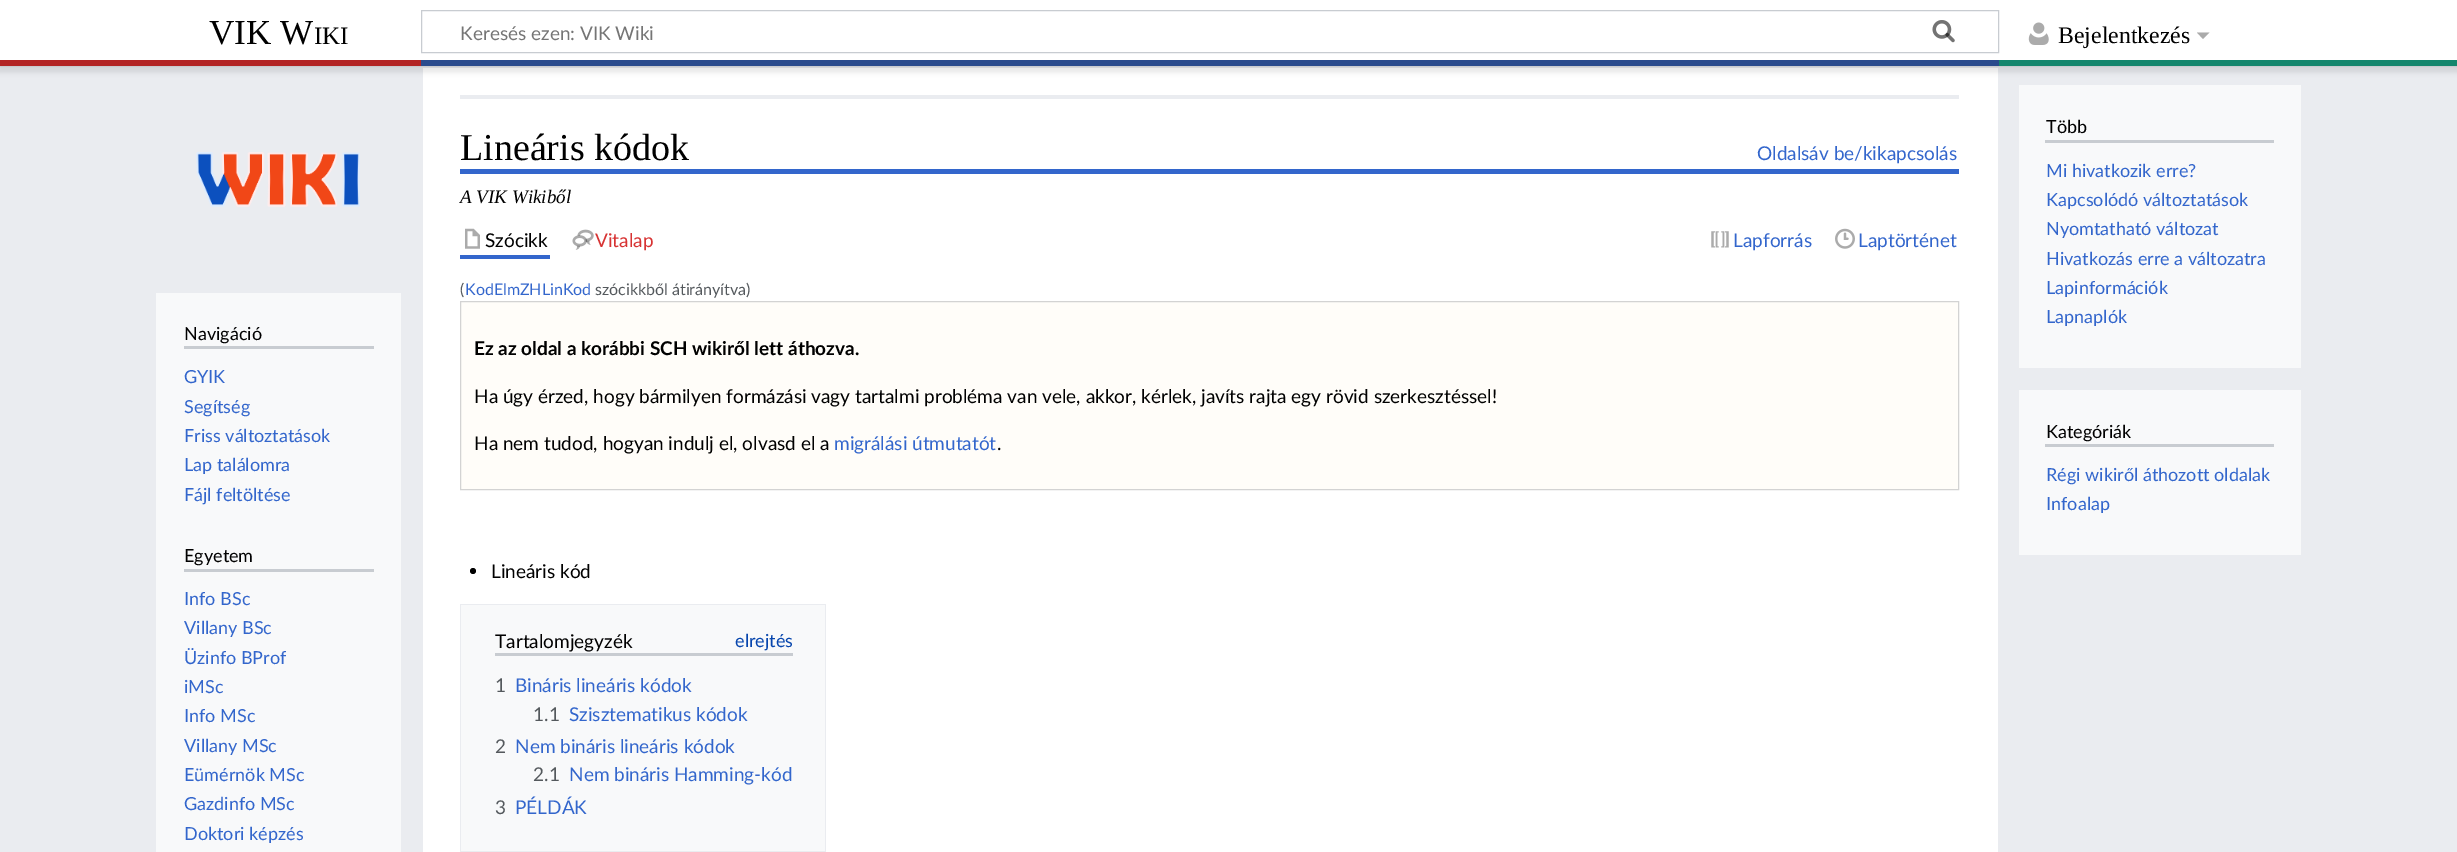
%!PS-Adobe-3.0
%%BoundingBox: 0 0 2457 852
%%LanguageLevel: 3
%%Pages: 1
%%EndComments
%%BeginProlog
/setalpha { dup .setfillconstantalpha .setstrokeconstantalpha } def
/rrect { 5 dict begin { /r /h /w /y /x } { exch def } forall
  x r add y moveto x w add y 2 copy h add r arct x w add y h add x 1 index r arct
  x y h add x y r arct x y 2 copy exch w add exch r arct closepath end } def
/softshadow { 12 dict begin { /a /b /q /h /w /y /x } { exch def } forall gsave /was 0 def
  9 -2 -9 { dup b mul 4 div /e exch def 1 sub .425 mul 2.718 exch exp 1 add a .99 .min exch div /now exch def
    1 1 now sub 1 was sub div sub setalpha /was now def
    w h .min e 2 mul add 0 gt { x e sub y e sub w e 2 mul add h e 2 mul add
      q e add b .6 mul add w h .min 2 div e add .min 0 .max rrect fill } if } for grestore end } def
/drawimage { 5 dict begin { /h /w /y /x /name } { exch def } forall
  gsave x y translate w h scale
  w h 8 [w 0 0 h 0 0] name (r) file false 3 colorimage grestore end } def
%%EndProlog
%%BeginSetup
<< /PageSize [2457 852] /PageUsesTransparency true >> setpagedevice
%%EndSetup
%%Page: 1 1
0 .pushpdf14devicefilter
0 852 translate 1 -1 scale
4 setmiterlimit
0.918 0.925 0.941 setrgbcolor
0 0 2457 852 rectfill
1 setgray
423 68 1575 784 rectfill
0 setgray
0 60 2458 6 0 1 0.2 softshadow
-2 61 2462 12 0 2 0.07 softshadow
1 setgray
0 0 2457 60 rectfill
0.784 0.8 0.82 setrgbcolor
421.5 10.5 1577 42 rectstroke
(images/1.raw) 1932 20 23 23 drawimage
(images/2.raw) 1932 20 23 23 drawimage
(images/3.raw) 2028 22 21 23 drawimage
0.671 setgray
newpath 2209.5 32.5 moveto 2203 39 lineto 2197 32.5 lineto closepath fill
0.702 0.141 0.141 setrgbcolor
0 60 421 6 rectfill
0.165 0.294 0.553 setrgbcolor
421 60 1578 6 rectfill
0.078 0.525 0.427 setrgbcolor
1999 60 458 6 rectfill
(images/4.raw) 196 152 164 55 drawimage
0.973 0.976 0.98 setrgbcolor
156 293 245 559 rectfill
0.784 0.8 0.82 setrgbcolor
184 346 190 3 rectfill
184 569 190 3 rectfill
0.918 0.925 0.941 setrgbcolor
460 95 1499 1 rectfill
1958 95 1 4 rectfill
460 96 1499 3 rectfill
0.2 0.4 0.8 setrgbcolor
460 169 1499 5 rectfill
460 255 90 4 rectfill
(images/5.raw) 465 228 15 21 drawimage
(images/6.raw) 572 229 22 21 drawimage
(images/7.raw) 1711 231 18 17 drawimage
(images/8.raw) 1835 228 20 21 drawimage
1 0.992 0.976 setrgbcolor
newpath 460.5 301.5 moveto 1958.5 301.5 lineto 1958.5 489.5 lineto 460.5 489.5 lineto closepath gsave fill grestore
0.827 setgray
stroke
0 setgray
newpath 473 571 3 0 360 arc closepath fill
0.973 0.976 0.98 setrgbcolor
461 605 364 246 rectfill
0.918 0.925 0.941 setrgbcolor
460 604 366 1 rectfill
825 604 1 248 rectfill
460 851 366 1 rectfill
460 604 1 248 rectfill
0.784 0.8 0.82 setrgbcolor
495 653 298 3 rectfill
0.973 0.976 0.98 setrgbcolor
2019 85 282 283 rectfill
0.784 0.8 0.82 setrgbcolor
2045 140 229 3 rectfill
0.973 0.976 0.98 setrgbcolor
2019 390 282 165 rectfill
0.784 0.8 0.82 setrgbcolor
2045 444 229 3 rectfill
/LiberationSerif-Regular [35 0 0 -35 0 0] selectfont
0 setgray
209 44 moveto (VIK W) show
/LiberationSerif-Regular [25 0 0 -25 0 0] selectfont
314 44 moveto (IKI) show
/Lato-Regular [19 0 0 -19 0 0] selectfont
0.459 setgray
460 40 moveto (Keresés ezen: VIK Wiki) show
/LiberationSerif-Regular [23.75 0 0 -23.75 0 0] selectfont
0 setgray
2058 43 moveto (Bejelentkezés) show
/Lato-Regular [18 0 0 -18 0 0] selectfont
184 340 moveto (Navigáció) show
0.2 0.4 0.8 setrgbcolor
184 383 moveto (GYIK) show
184 413 moveto (Segítség) show
184 442 moveto (Friss változtatások) show
184 471 moveto (Lap találomra) show
184 501 moveto (Fájl feltöltése) show
0 setgray
184 562 moveto (Egyetem) show
0.2 0.4 0.8 setrgbcolor
184 605 moveto (Info BSc) show
184 634 moveto (Villany BSc) show
184 664 moveto (Üzinfo BProf) show
184 693 moveto (iMSc) show
184 722 moveto (Info MSc) show
184 752 moveto (Villany MSc) show
184 781 moveto (Eümérnök MSc) show
184 810 moveto (Gazdinfo MSc) show
184 840 moveto (Doktori képzés) show
/LiberationSerif-Regular [38 0 0 -38 0 0] selectfont
0 setgray
460 160 moveto (Lineáris kódok) show
/Lato-Regular [19 0 0 -19 0 0] selectfont
0.2 0.4 0.8 setrgbcolor
1757 160 moveto (Oldalsáv be/kikapcsolás) show
/LiberationSerif-Italic [19 0 0 -19 0 0] selectfont
0 setgray
460 203 moveto (A VIK Wikiből) show
/Lato-Regular [19 0 0 -19 0 0] selectfont
485 247 moveto (Szócikk) show
0.843 0.2 0.2 setrgbcolor
595 247 moveto (Vitalap) show
0.2 0.4 0.8 setrgbcolor
1733 247 moveto (Lapforrás) show
1858 247 moveto (Laptörténet) show
/Lato-Regular [16 0 0 -16 0 0] selectfont
0.329 0.349 0.365 setrgbcolor
460 295 moveto (\() show
0.2 0.4 0.8 setrgbcolor
465 295 moveto (KodElmZHLinKod) show
0.329 0.349 0.365 setrgbcolor
595 295 moveto (szócikkből átirányítva\)) show
/Lato-Bold [19 0 0 -19 0 0] selectfont
0 setgray
474 355 moveto (Ez az oldal a korábbi SCH wikiről lett áthozva.) show
/Lato-Regular [19 0 0 -19 0 0] selectfont
474 403 moveto (Ha úgy érzed, hogy bármilyen formázási vagy tartalmi probléma van vele, akkor, kérlek, javíts rajta egy rövid szerkesztéssel!) show
474 450 moveto (Ha nem tudod, hogyan indulj el, olvasd el a) show
0.2 0.4 0.8 setrgbcolor
834 450 moveto (migrálási útmutatót) show
0 setgray
997 450 moveto (.) show
491 578 moveto (Lineáris kód) show
495 648 moveto (Tartalomjegyzék) show
/Lato-Regular [18 0 0 -18 0 0] selectfont
0.024 0.271 0.678 setrgbcolor
735 647 moveto (elrejtés) show
/Lato-Regular [19 0 0 -19 0 0] selectfont
0.329 0.349 0.365 setrgbcolor
495 692 moveto (1) show
0.2 0.4 0.8 setrgbcolor
515 692 moveto (Bináris lineáris kódok) show
0.329 0.349 0.365 setrgbcolor
533 721 moveto (1.1) show
0.2 0.4 0.8 setrgbcolor
569 721 moveto (Szisztematikus kódok) show
0.329 0.349 0.365 setrgbcolor
495 753 moveto (2) show
0.2 0.4 0.8 setrgbcolor
515 753 moveto (Nem bináris lineáris kódok) show
0.329 0.349 0.365 setrgbcolor
533 781 moveto (2.1) show
0.2 0.4 0.8 setrgbcolor
569 781 moveto (Nem bináris Hamming-kód) show
0.329 0.349 0.365 setrgbcolor
495 814 moveto (3) show
0.2 0.4 0.8 setrgbcolor
515 814 moveto (PÉLDÁK) show
/Lato-Regular [18 0 0 -18 0 0] selectfont
0 setgray
2046 133 moveto (Több) show
0.2 0.4 0.8 setrgbcolor
2046 177 moveto (Mi hivatkozik erre?) show
2046 206 moveto (Kapcsolódó változtatások) show
2046 235 moveto (Nyomtatható változat) show
2046 265 moveto (Hivatkozás erre a változatra) show
2046 294 moveto (Lapinformációk) show
2046 323 moveto (Lapnaplók) show
0 setgray
2046 438 moveto (Kategóriák) show
0.2 0.4 0.8 setrgbcolor
2046 481 moveto (Régi wikiről áthozott oldalak) show
2046 510 moveto (Infoalap) show
.poppdf14devicefilter showpage
%%EOF
